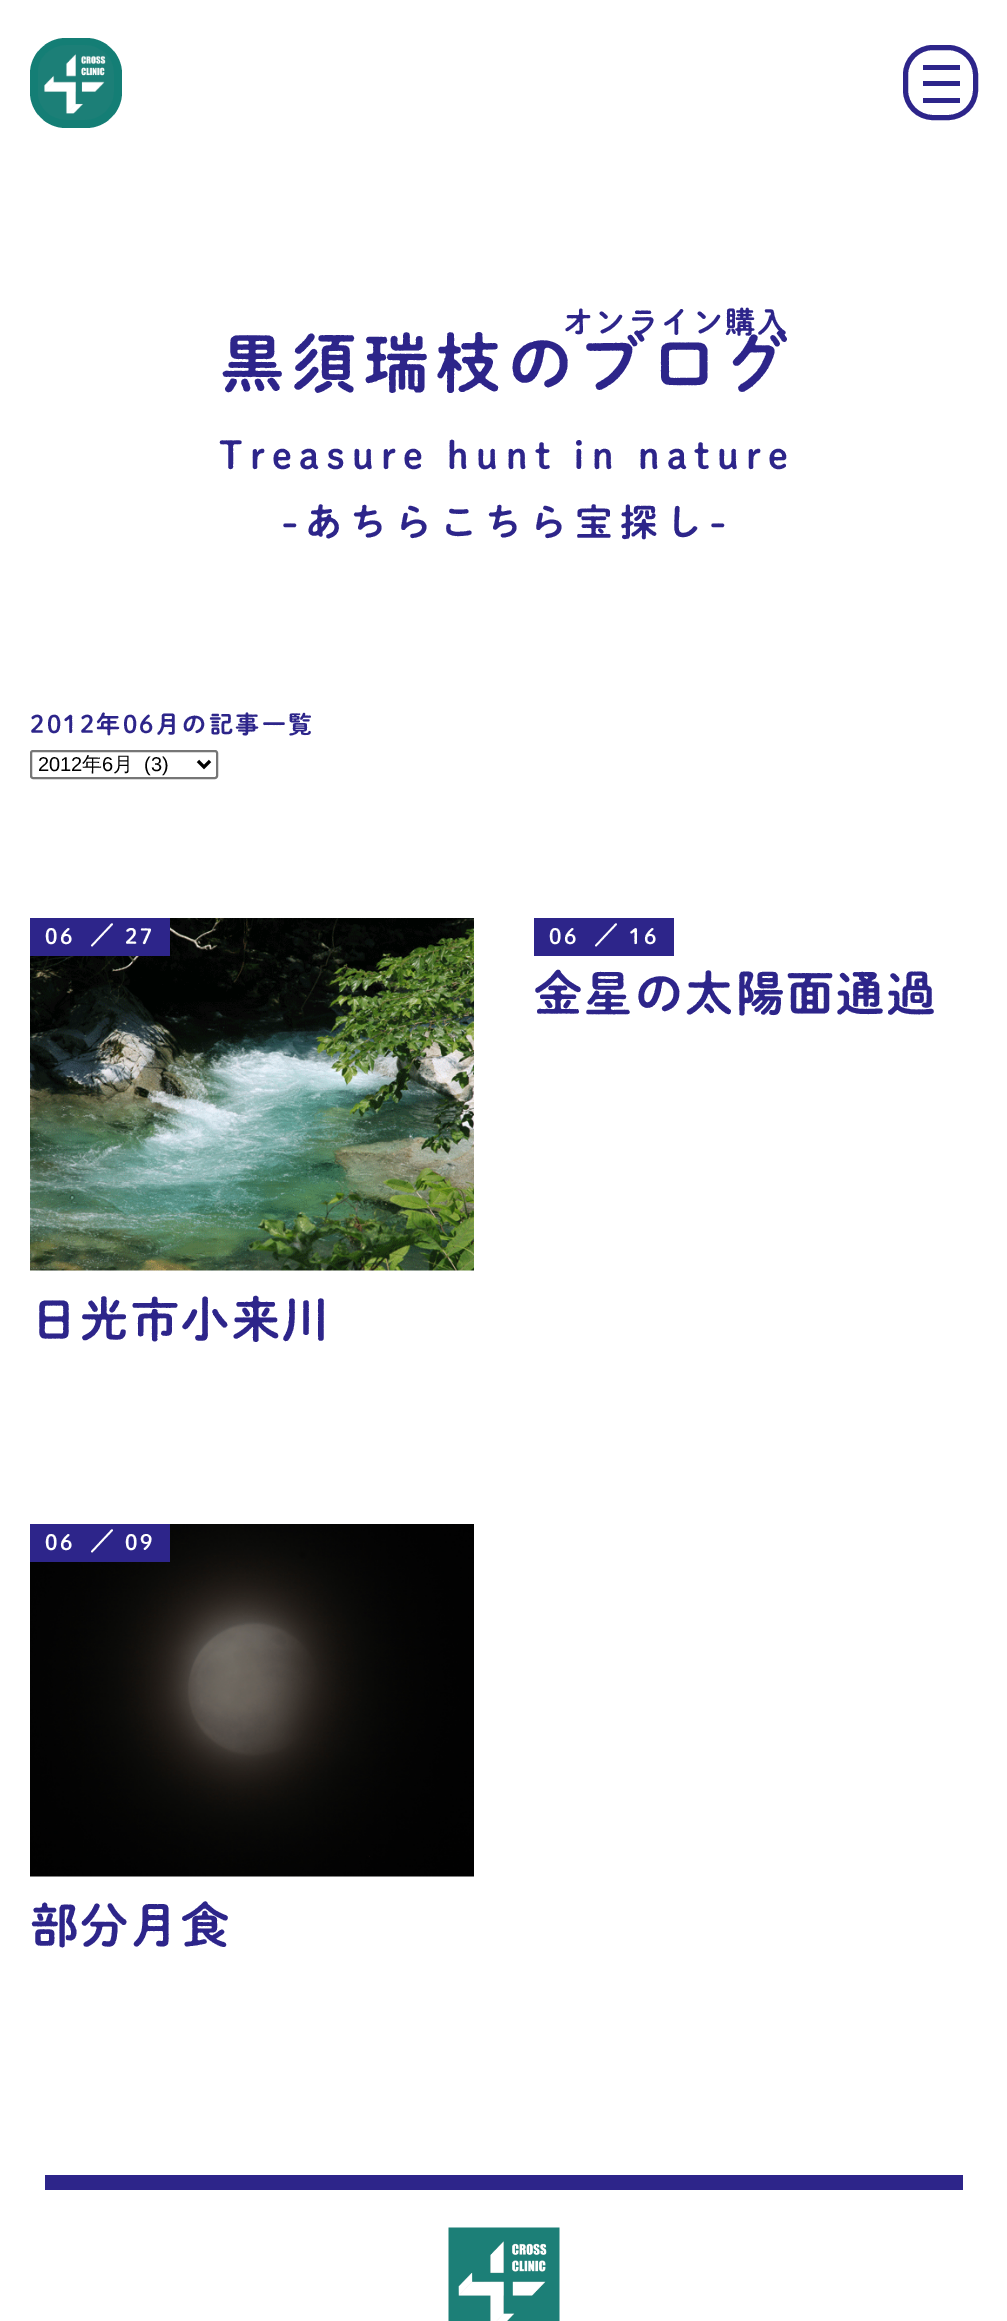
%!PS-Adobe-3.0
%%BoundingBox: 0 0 1007 2321
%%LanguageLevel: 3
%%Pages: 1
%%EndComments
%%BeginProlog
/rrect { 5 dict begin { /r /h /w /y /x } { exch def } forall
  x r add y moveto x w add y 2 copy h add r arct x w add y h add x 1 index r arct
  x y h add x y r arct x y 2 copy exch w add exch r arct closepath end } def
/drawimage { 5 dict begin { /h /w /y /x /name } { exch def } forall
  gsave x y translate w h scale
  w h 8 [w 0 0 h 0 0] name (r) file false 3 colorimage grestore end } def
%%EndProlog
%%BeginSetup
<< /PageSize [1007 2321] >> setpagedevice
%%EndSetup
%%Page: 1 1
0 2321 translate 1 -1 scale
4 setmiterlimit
1 setgray
0 0 1007 2321 rectfill
0.078 0.494 0.459 setrgbcolor
30 38 92 90 36 rrect fill
(images/1.raw) 38 45 76 75 drawimage
0.176 0.145 0.541 setrgbcolor
5 setlinewidth
905.5 47.5 70 70 27.5 rrect stroke
923 65 37 5 rectfill
923 81 37 5 rectfill
923 98 37 5 rectfill
0.463 setgray
2 setlinewidth
31 751 186 27 2 rrect stroke
0 setgray
3 setlinewidth
newpath 198 761 moveto 204 767 lineto 210 761 lineto stroke
(images/2.raw) 30 918 444 353 drawimage
0.176 0.145 0.541 setrgbcolor
30 918 140 38 rectfill
534 918 140 38 rectfill
(images/3.raw) 30 1524 444 353 drawimage
30 1524 140 38 rectfill
45 2175 918 15 rectfill
(images/4.raw) 448 2227 112 94 drawimage
/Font-SemiBold [30 0 0 -30 0 0] selectfont
563 333 moveto 2.4 0 (オンライン購入) ashow
/Font-SemiBold [64.5 0 0 -64.5 0 0] selectfont
220 387 moveto 7.5 0 (黒須瑞枝のブログ) ashow
/Font-SemiBold [37.5 0 0 -37.5 0 0] selectfont
219 469 moveto 7.5 0 (Treasure hunt in nature) ashow
282 536 moveto 7.5 0 (-あちらこちら宝探し-) ashow
/Font-SemiBold [24 0 0 -24 0 0] selectfont
30 733 moveto 2.4 0 (2012年06月の記事一覧) ashow
/LiberationSans-Regular [20 0 0 -20 0 0] selectfont
0 setgray
38 771 moveto (2012) show
/WenQuanYiZenHei-Medium [20 0 0 -20 0 0] selectfont
82 771 moveto (年) show
/LiberationSans-Regular [20 0 0 -20 0 0] selectfont
102 771 moveto (6) show
/WenQuanYiZenHei-Medium [20 0 0 -20 0 0] selectfont
113 771 moveto (月) show
/LiberationSans-Regular [20 0 0 -20 0 0] selectfont
144 771 moveto (\(3\)) show
/Font-SemiBold [21 0 0 -21 0 0] selectfont
1 setgray
45 944 moveto 2.4 0 (06) ashow
/Font-SemiBold [24 0 0 -24 0 0] selectfont
90 944 moveto 2.4 0 (／) ashow
/Font-SemiBold [21 0 0 -21 0 0] selectfont
125 944 moveto 2.4 0 (27) ashow
/Font-SemiBold [48 0 0 -48 0 0] selectfont
0.176 0.145 0.541 setrgbcolor
30 1337 moveto 2.4 0 (日光市小来川) ashow
/Font-SemiBold [21 0 0 -21 0 0] selectfont
1 setgray
549 944 moveto 2.4 0 (06) ashow
/Font-SemiBold [24 0 0 -24 0 0] selectfont
594 944 moveto 2.4 0 (／) ashow
/Font-SemiBold [21 0 0 -21 0 0] selectfont
629 944 moveto 2.4 0 (16) ashow
/Font-SemiBold [48 0 0 -48 0 0] selectfont
0.176 0.145 0.541 setrgbcolor
534 1011 moveto 2.4 0 (金星の太陽面通過) ashow
/Font-SemiBold [21 0 0 -21 0 0] selectfont
1 setgray
45 1550 moveto 2.4 0 (06) ashow
/Font-SemiBold [24 0 0 -24 0 0] selectfont
90 1550 moveto 2.4 0 (／) ashow
/Font-SemiBold [21 0 0 -21 0 0] selectfont
125 1550 moveto 2.4 0 (09) ashow
/Font-SemiBold [48 0 0 -48 0 0] selectfont
0.176 0.145 0.541 setrgbcolor
30 1943 moveto 2.4 0 (部分月食) ashow
showpage
%%EOF
